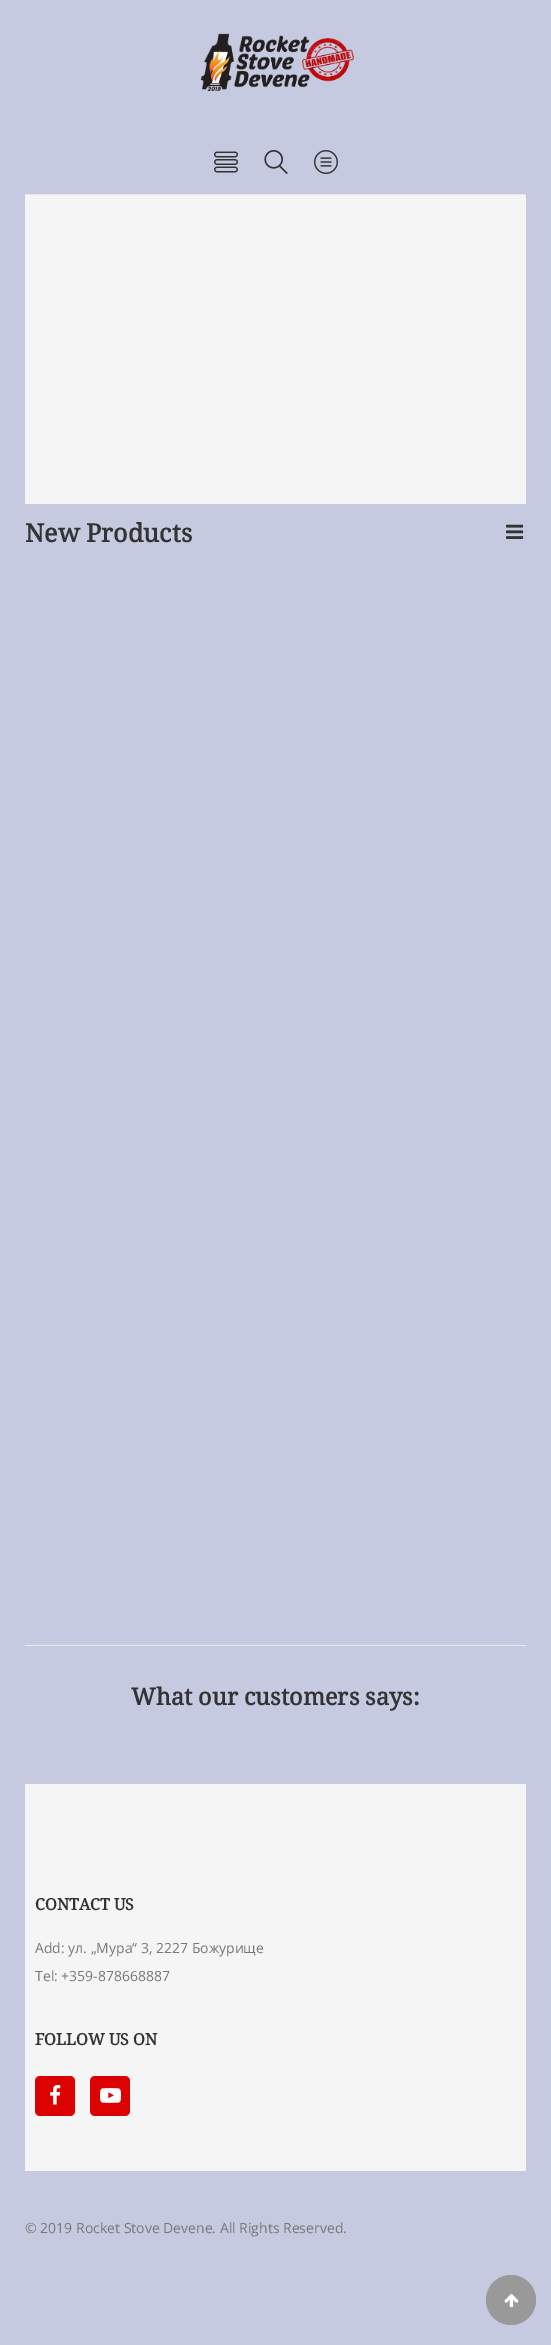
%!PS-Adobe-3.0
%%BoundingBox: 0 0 551 2345
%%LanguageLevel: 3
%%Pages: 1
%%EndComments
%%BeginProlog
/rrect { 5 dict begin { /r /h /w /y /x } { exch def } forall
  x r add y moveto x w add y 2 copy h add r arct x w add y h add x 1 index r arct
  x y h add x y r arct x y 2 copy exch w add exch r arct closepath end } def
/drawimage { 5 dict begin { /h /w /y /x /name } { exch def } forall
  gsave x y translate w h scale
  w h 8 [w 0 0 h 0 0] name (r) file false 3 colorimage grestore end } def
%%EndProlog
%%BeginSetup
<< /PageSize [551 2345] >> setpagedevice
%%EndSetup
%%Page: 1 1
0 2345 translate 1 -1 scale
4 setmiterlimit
0.773 0.792 0.878 setrgbcolor
0 0 551 2345 rectfill
0.918 setgray
25 194 501 1 rectfill
(images/1.raw) 200 33 154 58 drawimage
(images/2.raw) 214 151 24 22 drawimage
(images/3.raw) 264 150 24 24 drawimage
(images/4.raw) 314 150 24 24 drawimage
0.961 setgray
25 195 501 309 rectfill
(images/5.raw) 506 524 18 15 drawimage
0.922 setgray
25 1645 501 1 rectfill
0.961 setgray
25 1784 501 387 rectfill
0.867 0.008 0.008 setrgbcolor
35 2076 40 40 5 rrect fill
(images/6.raw) 50 2085 11 20 drawimage
90 2076 40 40 5 rrect fill
(images/7.raw) 100 2088 21 15 drawimage
0.6 setgray
newpath 511 2300 25 0 360 arc closepath fill
(images/8.raw) 504 2294 15 14 drawimage
/NotoSerif-Bold [25.25 0 0 -25.25 0 0] selectfont
0.2 setgray
25 542 moveto (New Products) show
/NotoSerif-Bold [23.5 0 0 -23.5 0 0] selectfont
131 1705 moveto (What our customers says:) show
/NotoSerif-Bold [16 0 0 -16 0 0] selectfont
35 1910 moveto (CONTACT US) show
/OpenSans-Regular [14 0 0 -14 0 0] selectfont
0.467 setgray
35 1953 moveto (Add: ул. „Мура“ 3, 2227 Божурище) show
35 1981 moveto (Tel: +359-878668887) show
/NotoSerif-Bold [16 0 0 -16 0 0] selectfont
0.2 setgray
35 2045 moveto (FOLLOW US ON) show
/OpenSans-Regular [14 0 0 -14 0 0] selectfont
0.467 setgray
25 2233 moveto (© 2019 Rocket Stove Devene. All Rights Reserved.) show
showpage
%%EOF
